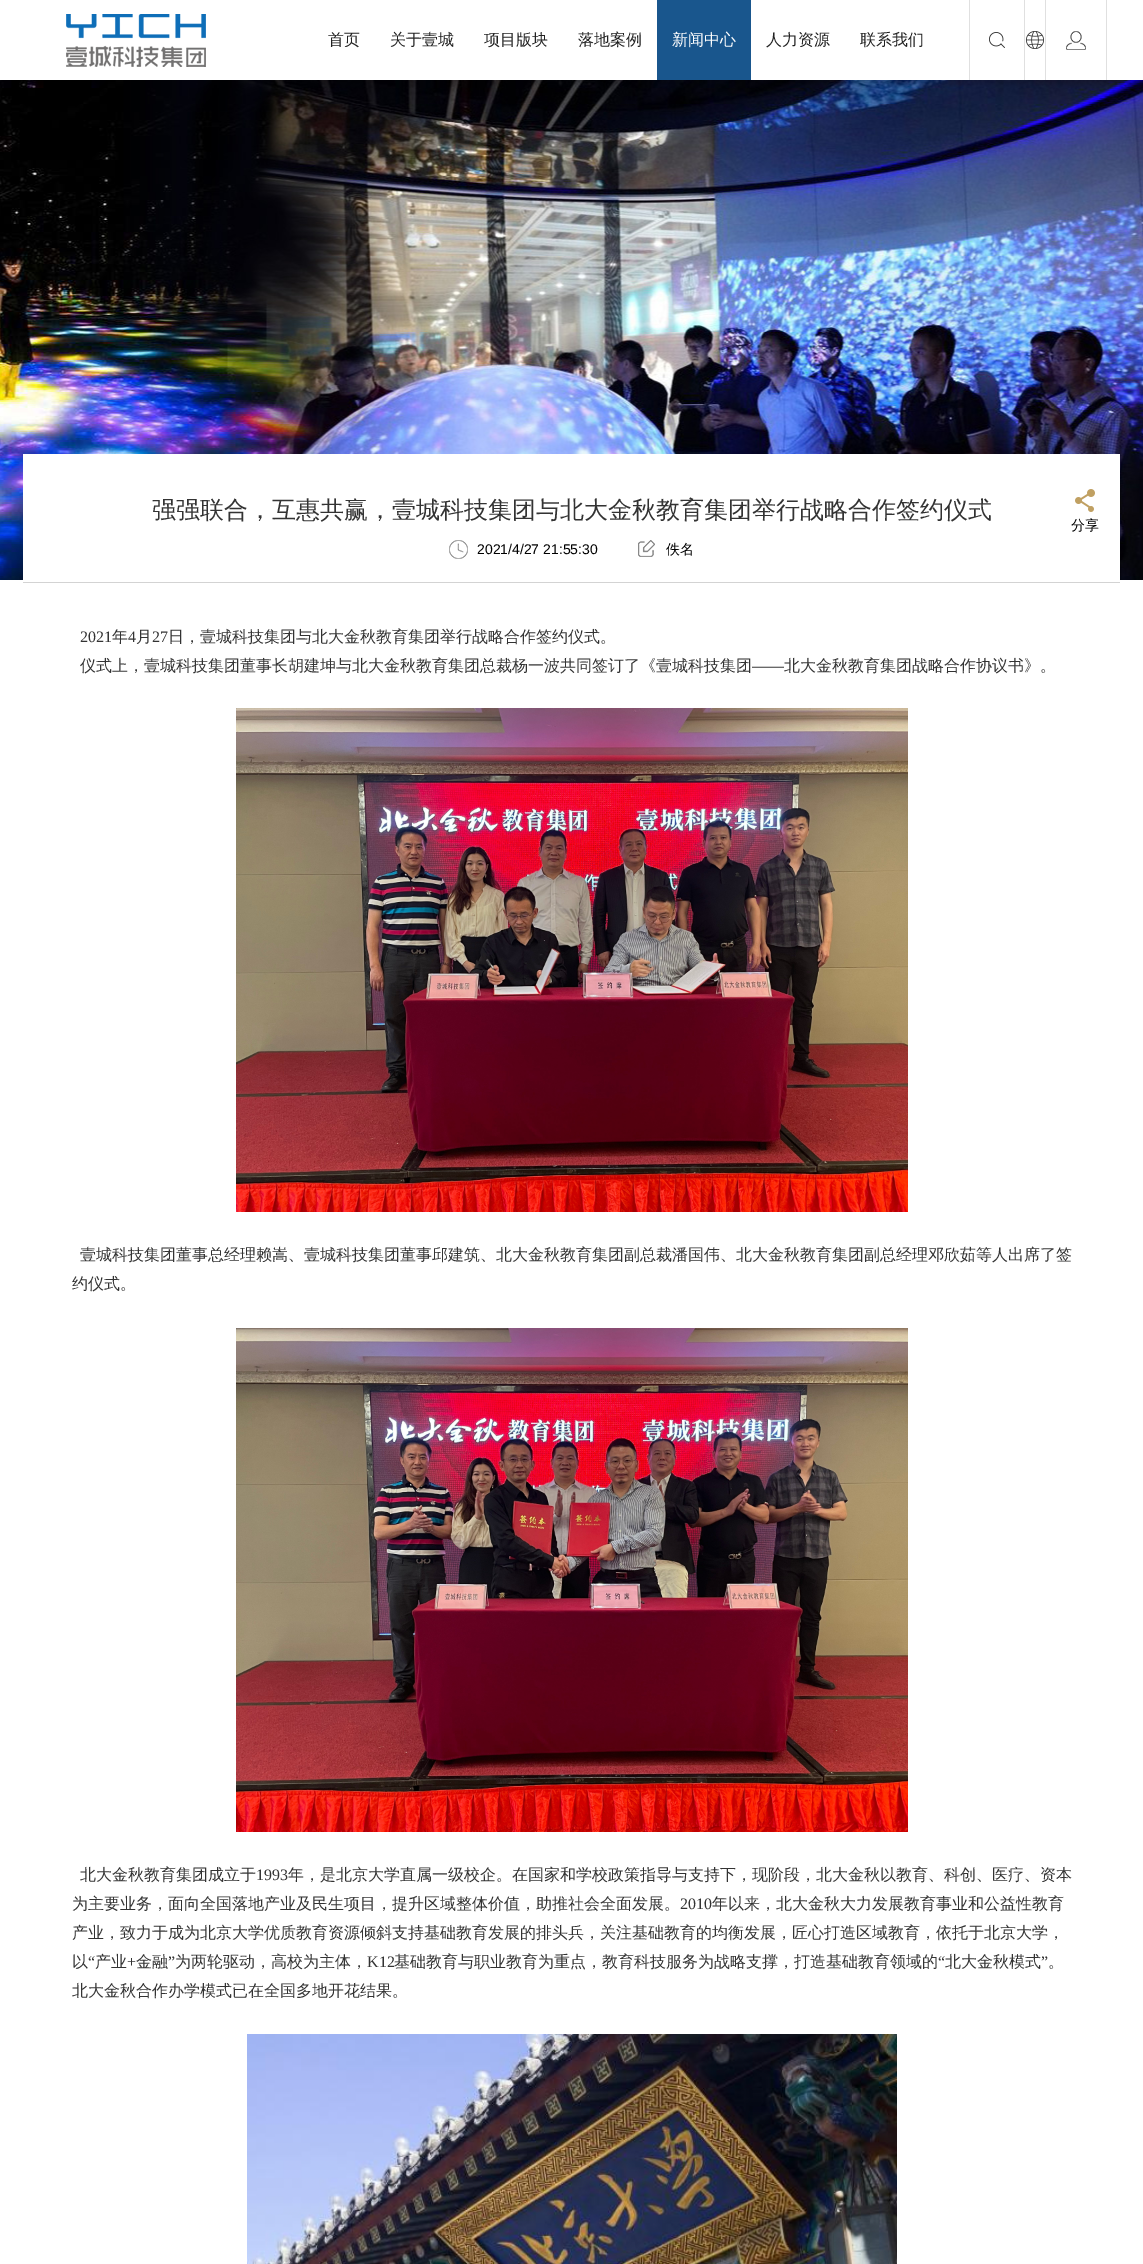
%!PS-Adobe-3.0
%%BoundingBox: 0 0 1143 2264
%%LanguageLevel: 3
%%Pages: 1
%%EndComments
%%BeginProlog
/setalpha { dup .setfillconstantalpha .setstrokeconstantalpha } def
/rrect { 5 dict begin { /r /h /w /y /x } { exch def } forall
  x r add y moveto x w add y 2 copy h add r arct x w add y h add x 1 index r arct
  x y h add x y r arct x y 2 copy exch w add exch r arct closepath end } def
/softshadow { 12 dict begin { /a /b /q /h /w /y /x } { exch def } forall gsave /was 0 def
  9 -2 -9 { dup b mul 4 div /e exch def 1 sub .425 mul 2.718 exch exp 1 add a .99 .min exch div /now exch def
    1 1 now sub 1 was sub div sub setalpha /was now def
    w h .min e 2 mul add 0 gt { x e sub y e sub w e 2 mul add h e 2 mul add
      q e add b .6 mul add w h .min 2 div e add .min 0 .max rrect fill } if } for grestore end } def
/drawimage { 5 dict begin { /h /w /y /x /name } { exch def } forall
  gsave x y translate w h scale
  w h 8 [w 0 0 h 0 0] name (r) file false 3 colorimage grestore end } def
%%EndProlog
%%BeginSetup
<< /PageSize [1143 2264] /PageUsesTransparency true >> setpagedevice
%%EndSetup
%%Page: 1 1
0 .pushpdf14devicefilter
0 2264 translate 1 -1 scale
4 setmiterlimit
1 setgray
0 0 1143 2264 rectfill
(images/5.raw) 0 80 1143 500 drawimage
gsave
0 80 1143 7 rectclip
0.035 0.008 0.016 setrgbcolor
0 4 1143 80 0 2.5 0.17 softshadow
grestore
(images/1.raw) 66 14 140 53 drawimage
0.098 0.337 0.553 setrgbcolor
657 0 94 80 rectfill
0.878 setgray
1024 0 1 80 rectfill
969 0 1 80 rectfill
(images/2.raw) 989 32 16 16 drawimage
1045 0 1 80 rectfill
(images/3.raw) 1026 31 18 18 drawimage
1106 0 1 80 rectfill
(images/4.raw) 1066 31 20 19 drawimage
1 setgray
23 454 1097 126 rectfill
0.827 setgray
23 582 1097 1 rectfill
(images/6.raw) 1075 489 20 23 drawimage
(images/7.raw) 449 540 19 19 drawimage
(images/8.raw) 638 540 17 17 drawimage
(images/9.raw) 236 708 672 504 drawimage
(images/10.raw) 236 1328 672 504 drawimage
(images/11.raw) 247 2034 650 230 drawimage
/WenQuanYiZenHei-Medium [16 0 0 -16 0 0] selectfont
0.133 setgray
328 45 moveto (首页) show
390 45 moveto (关于壹城) show
484 45 moveto (项目版块) show
578 45 moveto (落地案例) show
1 setgray
672 45 moveto (新闻中心) show
0.133 setgray
766 45 moveto (人力资源) show
860 45 moveto (联系我们) show
/WenQuanYiZenHei-Medium [24 0 0 -24 0 0] selectfont
0.2 setgray
152 518 moveto (强强联合，互惠共赢，壹城科技集团与北大金秋教育集团举行战略合作签约仪式) show
/WenQuanYiZenHei-Medium [14 0 0 -14 0 0] selectfont
0 setgray
1071 530 moveto (分享) show
/LiberationSans-Regular [14 0 0 -14 0 0] selectfont
477 554 moveto (2021/4/27 21:55:30) show
/WenQuanYiZenHei-Medium [14 0 0 -14 0 0] selectfont
666 554 moveto (佚名) show
/LiberationSerif-Regular [16 0 0 -16 0 0] selectfont
0.2 setgray
80 642 moveto (2021) show
/WenQuanYiZenHei-Medium [16 0 0 -16 0 0] selectfont
112 642 moveto (年) show
/LiberationSerif-Regular [16 0 0 -16 0 0] selectfont
128 642 moveto (4) show
/WenQuanYiZenHei-Medium [16 0 0 -16 0 0] selectfont
136 642 moveto (月) show
/LiberationSerif-Regular [16 0 0 -16 0 0] selectfont
152 642 moveto (27) show
/WenQuanYiZenHei-Medium [16 0 0 -16 0 0] selectfont
168 642 moveto (日，壹城科技集团与北大金秋教育集团举行战略合作签约仪式。) show
80 671 moveto (仪式上，壹城科技集团董事长胡建坤与北大金秋教育集团总裁杨一波共同签订了《壹城科技集团) show
/LiberationSerif-Regular [16 0 0 -16 0 0] selectfont
752 671 moveto (——) show
/WenQuanYiZenHei-Medium [16 0 0 -16 0 0] selectfont
784 671 moveto (北大金秋教育集团战略合作协议书》。) show
80 1260 moveto (壹城科技集团董事总经理赖嵩、壹城科技集团董事邱建筑、北大金秋教育集团副总裁潘国伟、北大金秋教育集团副总经理邓欣茹等人出席了签) show
72 1289 moveto (约仪式。) show
80 1880 moveto (北大金秋教育集团成立于) show
/LiberationSerif-Regular [16 0 0 -16 0 0] selectfont
256 1880 moveto (1993) show
/WenQuanYiZenHei-Medium [16 0 0 -16 0 0] selectfont
288 1880 moveto (年，是北京大学直属一级校企。在国家和学校政策指导与支持下，现阶段，北大金秋以教育、科创、医疗、资本) show
72 1909 moveto (为主要业务，面向全国落地产业及民生项目，提升区域整体价值，助推社会全面发展。) show
/LiberationSerif-Regular [16 0 0 -16 0 0] selectfont
680 1909 moveto (2010) show
/WenQuanYiZenHei-Medium [16 0 0 -16 0 0] selectfont
712 1909 moveto (年以来，北大金秋大力发展教育事业和公益性教育) show
72 1938 moveto (产业，致力于成为北京大学优质教育资源倾斜支持基础教育发展的排头兵，关注基础教育的均衡发展，匠心打造区域教育，依托于北京大学，) show
72 1967 moveto (以) show
/LiberationSerif-Regular [16 0 0 -16 0 0] selectfont
88 1967 moveto (“) show
/WenQuanYiZenHei-Medium [16 0 0 -16 0 0] selectfont
95 1967 moveto (产业) show
/LiberationSerif-Regular [16 0 0 -16 0 0] selectfont
127 1967 moveto (+) show
/WenQuanYiZenHei-Medium [16 0 0 -16 0 0] selectfont
136 1967 moveto (金融) show
/LiberationSerif-Regular [16 0 0 -16 0 0] selectfont
168 1967 moveto (”) show
/WenQuanYiZenHei-Medium [16 0 0 -16 0 0] selectfont
175 1967 moveto (为两轮驱动，高校为主体，) show
/LiberationSerif-Regular [16 0 0 -16 0 0] selectfont
367 1967 moveto (K12) show
/WenQuanYiZenHei-Medium [16 0 0 -16 0 0] selectfont
394 1967 moveto (基础教育与职业教育为重点，教育科技服务为战略支撑，打造基础教育领域的) show
/LiberationSerif-Regular [16 0 0 -16 0 0] selectfont
938 1967 moveto (“) show
/WenQuanYiZenHei-Medium [16 0 0 -16 0 0] selectfont
945 1967 moveto (北大金秋模式) show
/LiberationSerif-Regular [16 0 0 -16 0 0] selectfont
1041 1967 moveto (”) show
/WenQuanYiZenHei-Medium [16 0 0 -16 0 0] selectfont
1048 1967 moveto (。) show
72 1996 moveto (北大金秋合作办学模式已在全国多地开花结果。) show
.poppdf14devicefilter showpage
%%EOF
